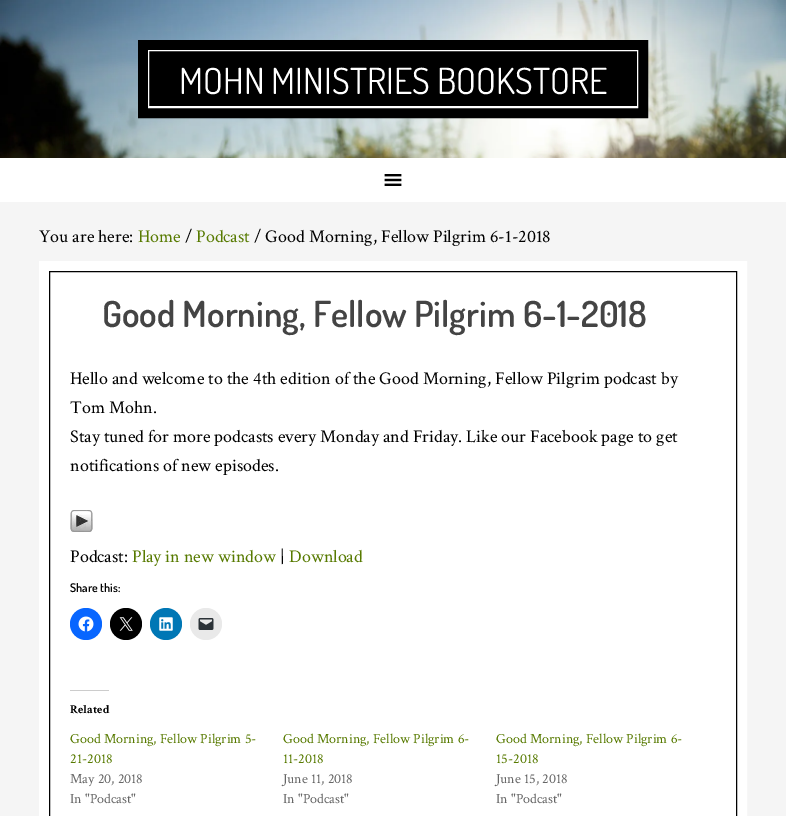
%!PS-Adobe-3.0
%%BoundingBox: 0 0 786 816
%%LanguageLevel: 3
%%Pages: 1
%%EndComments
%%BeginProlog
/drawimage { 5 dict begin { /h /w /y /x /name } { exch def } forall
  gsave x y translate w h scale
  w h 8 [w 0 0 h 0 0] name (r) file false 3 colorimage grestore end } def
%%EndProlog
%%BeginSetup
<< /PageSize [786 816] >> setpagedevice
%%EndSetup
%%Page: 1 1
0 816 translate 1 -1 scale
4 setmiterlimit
0.961 setgray
0 0 786 816 rectfill
(images/1.raw) 0 0 786 158 drawimage
0 setgray
10 setlinewidth
143 45 500 68 rectstroke
149 51 488 55 rectfill
1 setgray
1 setlinewidth
148.5 50.5 489 57 rectstroke
149 106 488 1 rectfill
0 158 786 44 rectfill
(images/2.raw) 384 174 18 12 drawimage
10 setlinewidth
44 266 698 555 rectstroke
newpath 49.5 271.5 moveto 736.5 271.5 lineto 736.5 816.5 lineto 49.5 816.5 lineto closepath gsave fill grestore
0 setgray
1 setlinewidth
stroke
(images/3.raw) 70 510 23 22 drawimage
0.031 0.4 1 setrgbcolor
newpath 86 624 16 0 360 arc closepath fill
(images/4.raw) 78 616 16 16 drawimage
0 setgray
newpath 126 624 16 0 360 arc closepath fill
(images/5.raw) 119 617 14 14 drawimage
0 0.467 0.71 setrgbcolor
newpath 166 624 16 0 360 arc closepath fill
(images/6.raw) 159 617 14 14 drawimage
0.914 setgray
newpath 206 624 16 0 360 arc closepath fill
(images/7.raw) 198 618 16 12 drawimage
0.8 setgray
70 690 39 1 rectfill
/Dosis-Regular [36 0 0 -36 0 0] selectfont
1 setgray
179 94 moveto (MOHN MINISTRIES BOOKSTORE) show
/CrimsonText-Regular [18 0 0 -18 0 0] selectfont
0 setgray
39 242 moveto (You are here:) show
0.341 0.478 0 setrgbcolor
138 242 moveto (Home) show
0 setgray
185 242 moveto (/) show
0.341 0.478 0 setrgbcolor
196 242 moveto (Podcast) show
0 setgray
254 242 moveto (/ Good Morning, Fellow Pilgrim 6-1-2018) show
/Dosis-SemiBold [36 0 0 -36 0 0] selectfont
0.267 setgray
102 327 moveto (Good Morning, Fellow Pilgrim 6-1-2018) show
/CrimsonText-Regular [18 0 0 -18 0 0] selectfont
0 setgray
70 384 moveto (Hello and welcome to the 4th edition of the Good Morning, Fellow Pilgrim podcast by) show
70 413 moveto (Tom Mohn.) show
70 442 moveto (Stay tuned for more podcasts every Monday and Friday. Like our Facebook page to get) show
70 471 moveto (notifications of new episodes.) show
70 562 moveto (Podcast:) show
0.341 0.478 0 setrgbcolor
132 562 moveto (Play in new window) show
0 setgray
280 562 moveto (|) show
0.341 0.478 0 setrgbcolor
289 562 moveto (Download) show
/Dosis-SemiBold [12 0 0 -12 0 0] selectfont
0 setgray
70 592 moveto (Share this:) show
/CrimsonText-Bold [12 0 0 -12 0 0] selectfont
70 713 moveto (Related) show
/CrimsonText-Regular [14 0 0 -14 0 0] selectfont
0.341 0.478 0 setrgbcolor
70 743 moveto (Good Morning, Fellow Pilgrim 5-) show
70 763 moveto (21-2018) show
0.4 setgray
70 783 moveto (May 20, 2018) show
70 803 moveto (In "Podcast") show
0.341 0.478 0 setrgbcolor
283 743 moveto (Good Morning, Fellow Pilgrim 6-) show
283 763 moveto (11-2018) show
0.4 setgray
283 783 moveto (June 11, 2018) show
283 803 moveto (In "Podcast") show
0.341 0.478 0 setrgbcolor
496 743 moveto (Good Morning, Fellow Pilgrim 6-) show
496 763 moveto (15-2018) show
0.4 setgray
496 783 moveto (June 15, 2018) show
496 803 moveto (In "Podcast") show
showpage
%%EOF
